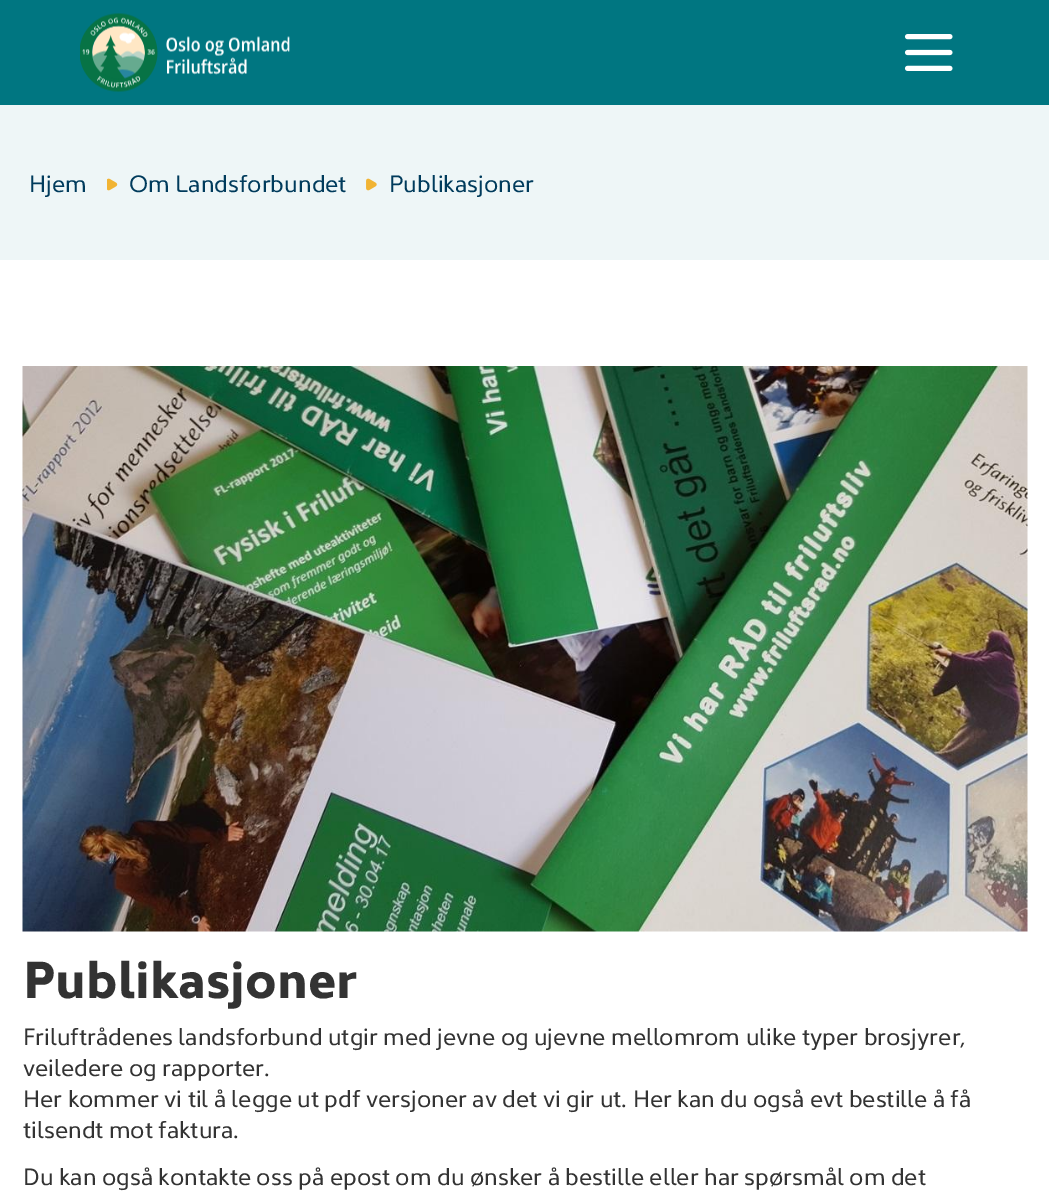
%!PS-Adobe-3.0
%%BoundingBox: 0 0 1049 1199
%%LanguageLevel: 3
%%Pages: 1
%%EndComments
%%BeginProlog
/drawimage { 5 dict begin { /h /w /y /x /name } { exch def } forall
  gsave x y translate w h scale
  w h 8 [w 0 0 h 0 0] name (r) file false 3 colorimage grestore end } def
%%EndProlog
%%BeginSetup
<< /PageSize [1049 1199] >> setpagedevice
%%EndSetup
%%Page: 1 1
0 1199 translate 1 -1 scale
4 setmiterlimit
1 setgray
0 0 1049 1199 rectfill
0 0.463 0.506 setrgbcolor
0 0 1049 105 rectfill
(images/1.raw) 80 13 210 79 drawimage
(images/2.raw) 904 34 49 37 drawimage
0.933 0.965 0.969 setrgbcolor
0 105 1049 155 rectfill
(images/3.raw) 107 178 11 13 drawimage
(images/4.raw) 366 178 11 13 drawimage
(images/5.raw) 22 366 1006 566 drawimage
/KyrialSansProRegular-Regular [24 0 0 -24 0 0] selectfont
0 0.231 0.361 setrgbcolor
29 192 moveto (Hjem) show
129 192 moveto (Om Landsforbundet) show
389 192 moveto (Publikasjoner) show
/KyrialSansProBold-Bold [52.5 0 0 -52.5 0 0] selectfont
0.2 setgray
23 998 moveto (Publikasjoner) show
/KyrialSansProRegular-Regular [24 0 0 -24 0 0] selectfont
23 1045 moveto (Friluftrådenes landsforbund utgir med jevne og ujevne mellomrom ulike typer brosjyrer,) show
23 1076 moveto (veiledere og rapporter.) show
23 1107 moveto (Her kommer vi til å legge ut pdf versjoner av det vi gir ut. Her kan du også evt bestille å få) show
23 1138 moveto (tilsendt mot faktura.) show
23 1185 moveto (Du kan også kontakte oss på epost om du ønsker å bestille eller har spørsmål om det) show
showpage
%%EOF
